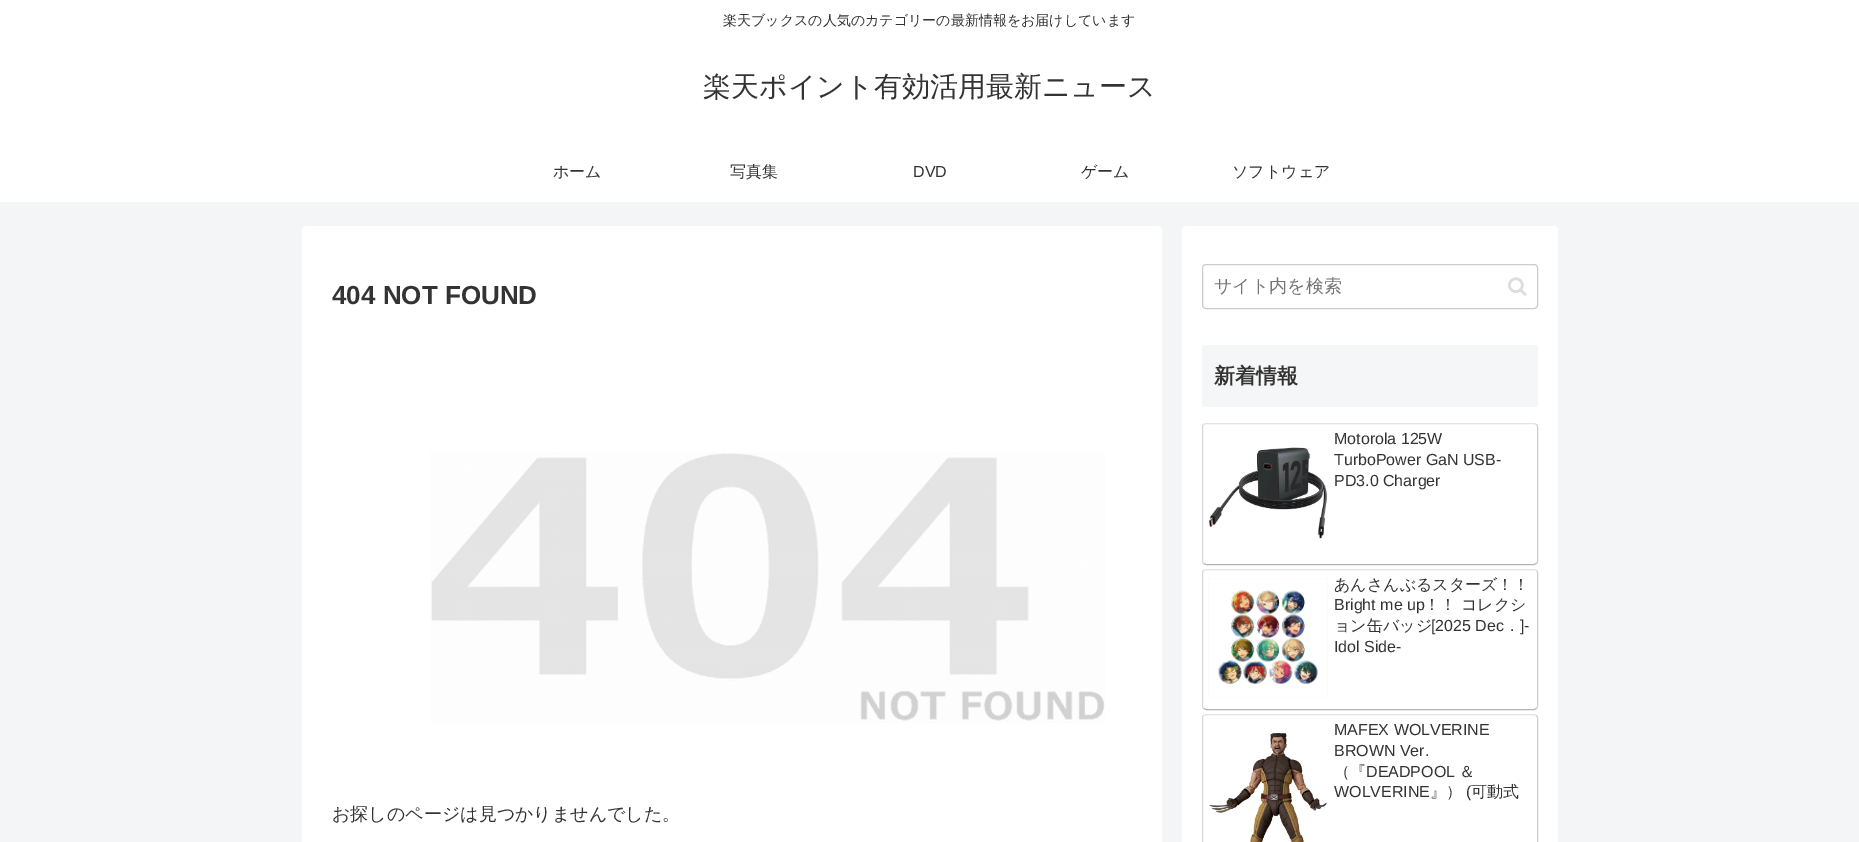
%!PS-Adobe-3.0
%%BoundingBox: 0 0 1859 842
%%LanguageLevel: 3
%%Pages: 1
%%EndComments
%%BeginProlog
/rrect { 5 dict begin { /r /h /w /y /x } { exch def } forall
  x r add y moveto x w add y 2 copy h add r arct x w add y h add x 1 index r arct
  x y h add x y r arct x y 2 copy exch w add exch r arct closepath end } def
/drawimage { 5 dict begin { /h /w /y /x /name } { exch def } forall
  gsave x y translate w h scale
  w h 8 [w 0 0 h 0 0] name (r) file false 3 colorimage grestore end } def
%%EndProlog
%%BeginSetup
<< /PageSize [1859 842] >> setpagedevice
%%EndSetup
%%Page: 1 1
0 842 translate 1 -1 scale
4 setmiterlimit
0.957 0.961 0.969 setrgbcolor
0 0 1859 842 rectfill
1 setgray
0 0 1859 202 rectfill
302 226 860 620 4 rrect fill
(images/1.raw) 430 452 675 271 drawimage
1182 226 376 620 4 rrect fill
0.8 setgray
1202.5 264.5 335 44 3.5 rrect stroke
(images/2.raw) 1508 277 19 19 drawimage
0.961 0.965 0.969 setrgbcolor
1202 345 336 62 2 rrect fill
0.89 setgray
newpath 1203.5 424.5 moveto 1206 423.5 lineto 1534 423.5 lineto 1536.5 424.5 lineto stroke
0.808 setgray
newpath 1536.5 424.5 moveto 1537 425 1537.5 426 1537.5 427 curveto 1537.5 561 lineto 1537.5 562 1537 563 1536.5 563.5 curveto stroke
0.706 setgray
newpath 1536.5 563.5 moveto 1534 564.5 lineto 1206 564.5 lineto 1203.5 563.5 lineto stroke
0.839 setgray
newpath 1203.5 563.5 moveto 1203 563 1202.5 562 1202.5 561 curveto 1202.5 427 lineto 1202.5 426 1203 425 1203.5 424.5 curveto stroke
(images/3.raw) 1208 447 120 93 drawimage
0.89 setgray
newpath 1203.5 570.5 moveto 1206 569.5 lineto 1534 569.5 lineto 1536.5 570.5 lineto stroke
0.808 setgray
newpath 1536.5 570.5 moveto 1537 571 1537.5 572 1537.5 573 curveto 1537.5 706 lineto 1537.5 707 1537 708 1536.5 708.5 curveto stroke
0.706 setgray
newpath 1536.5 708.5 moveto 1534 709.5 lineto 1206 709.5 lineto 1203.5 708.5 lineto stroke
0.839 setgray
newpath 1203.5 708.5 moveto 1203 708 1202.5 707 1202.5 706 curveto 1202.5 573 lineto 1202.5 572 1203 571 1203.5 570.5 curveto stroke
(images/4.raw) 1208 578 120 120 drawimage
0.89 setgray
newpath 1203.5 715.5 moveto 1206 714.5 lineto 1534 714.5 lineto 1536.5 715.5 lineto stroke
0.808 setgray
newpath 1536.5 715.5 moveto 1537 716 1537.5 717 1537.5 718 curveto 1537.5 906 lineto 1537.5 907 1537 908 1536.5 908.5 curveto stroke
0.839 setgray
newpath 1203.5 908.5 moveto 1203 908 1202.5 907 1202.5 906 curveto 1202.5 718 lineto 1202.5 717 1203 716 1203.5 715.5 curveto stroke
(images/5.raw) 1209 733 118 109 drawimage
/WenQuanYiZenHei-Medium [14 0 0 -14 0 0] selectfont
0.2 setgray
723 25 moveto (楽天ブックスの人気のカテゴリーの最新情報をお届けしています) show
/WenQuanYiZenHei-Medium [28 0 0 -28 0 0] selectfont
703 96 moveto (楽天ポイント有効活用最新ニュース) show
/WenQuanYiZenHei-Medium [16 0 0 -16 0 0] selectfont
553 177 moveto (ホーム) show
730 177 moveto (写真集) show
/LiberationSans-Regular [16 0 0 -16 0 0] selectfont
913 177 moveto (DVD) show
/WenQuanYiZenHei-Medium [16 0 0 -16 0 0] selectfont
1081 177 moveto (ゲーム) show
1232 177 moveto (ソフトウェア) show
/LiberationSans-Bold [26 0 0 -26 0 0] selectfont
332 304 moveto (404 NOT FOUND) show
/WenQuanYiZenHei-Medium [18 0 0 -18 0 0] selectfont
332 820 moveto (お探しのページは見つかりませんでした。) show
0.459 setgray
1214 292 moveto (サイト内を検索) show
/WenQuanYiZenHei-Bold [21 0 0 -21 0 0] selectfont
0.2 setgray
1214 383 moveto (新着情報) show
/LiberationSans-Regular [16 0 0 -16 0 0] selectfont
1334 444 moveto (Motorola 125W) show
1334 465 moveto (TurboPower GaN USB-) show
1334 486 moveto (PD3.0 Charger) show
/WenQuanYiZenHei-Medium [16 0 0 -16 0 0] selectfont
1334 590 moveto (あんさんぶるスターズ！！) show
/LiberationSans-Regular [16 0 0 -16 0 0] selectfont
1334 610 moveto (Bright me up) show
/WenQuanYiZenHei-Medium [16 0 0 -16 0 0] selectfont
1424 610 moveto (！！) show
1461 610 moveto (コレクシ) show
1334 631 moveto (ョン缶バッジ) show
/LiberationSans-Regular [16 0 0 -16 0 0] selectfont
1431 631 moveto ([2025 Dec) show
/WenQuanYiZenHei-Medium [16 0 0 -16 0 0] selectfont
1504 631 moveto (．) show
/LiberationSans-Regular [16 0 0 -16 0 0] selectfont
1520 631 moveto (]-) show
1334 652 moveto (Idol Side-) show
1334 735 moveto (MAFEX WOLVERINE) show
1334 756 moveto (BROWN Ver.) show
/WenQuanYiZenHei-Medium [16 0 0 -16 0 0] selectfont
1334 777 moveto (（『) show
/LiberationSans-Regular [16 0 0 -16 0 0] selectfont
1366 777 moveto (DEADPOOL) show
/WenQuanYiZenHei-Medium [16 0 0 -16 0 0] selectfont
1459 777 moveto (＆) show
/LiberationSans-Regular [16 0 0 -16 0 0] selectfont
1334 797 moveto (WOLVERINE) show
/WenQuanYiZenHei-Medium [16 0 0 -16 0 0] selectfont
1430 797 moveto (』）) show
/LiberationSans-Regular [16 0 0 -16 0 0] selectfont
1466 797 moveto (\() show
/WenQuanYiZenHei-Medium [16 0 0 -16 0 0] selectfont
1471 797 moveto (可動式) show
showpage
%%EOF
